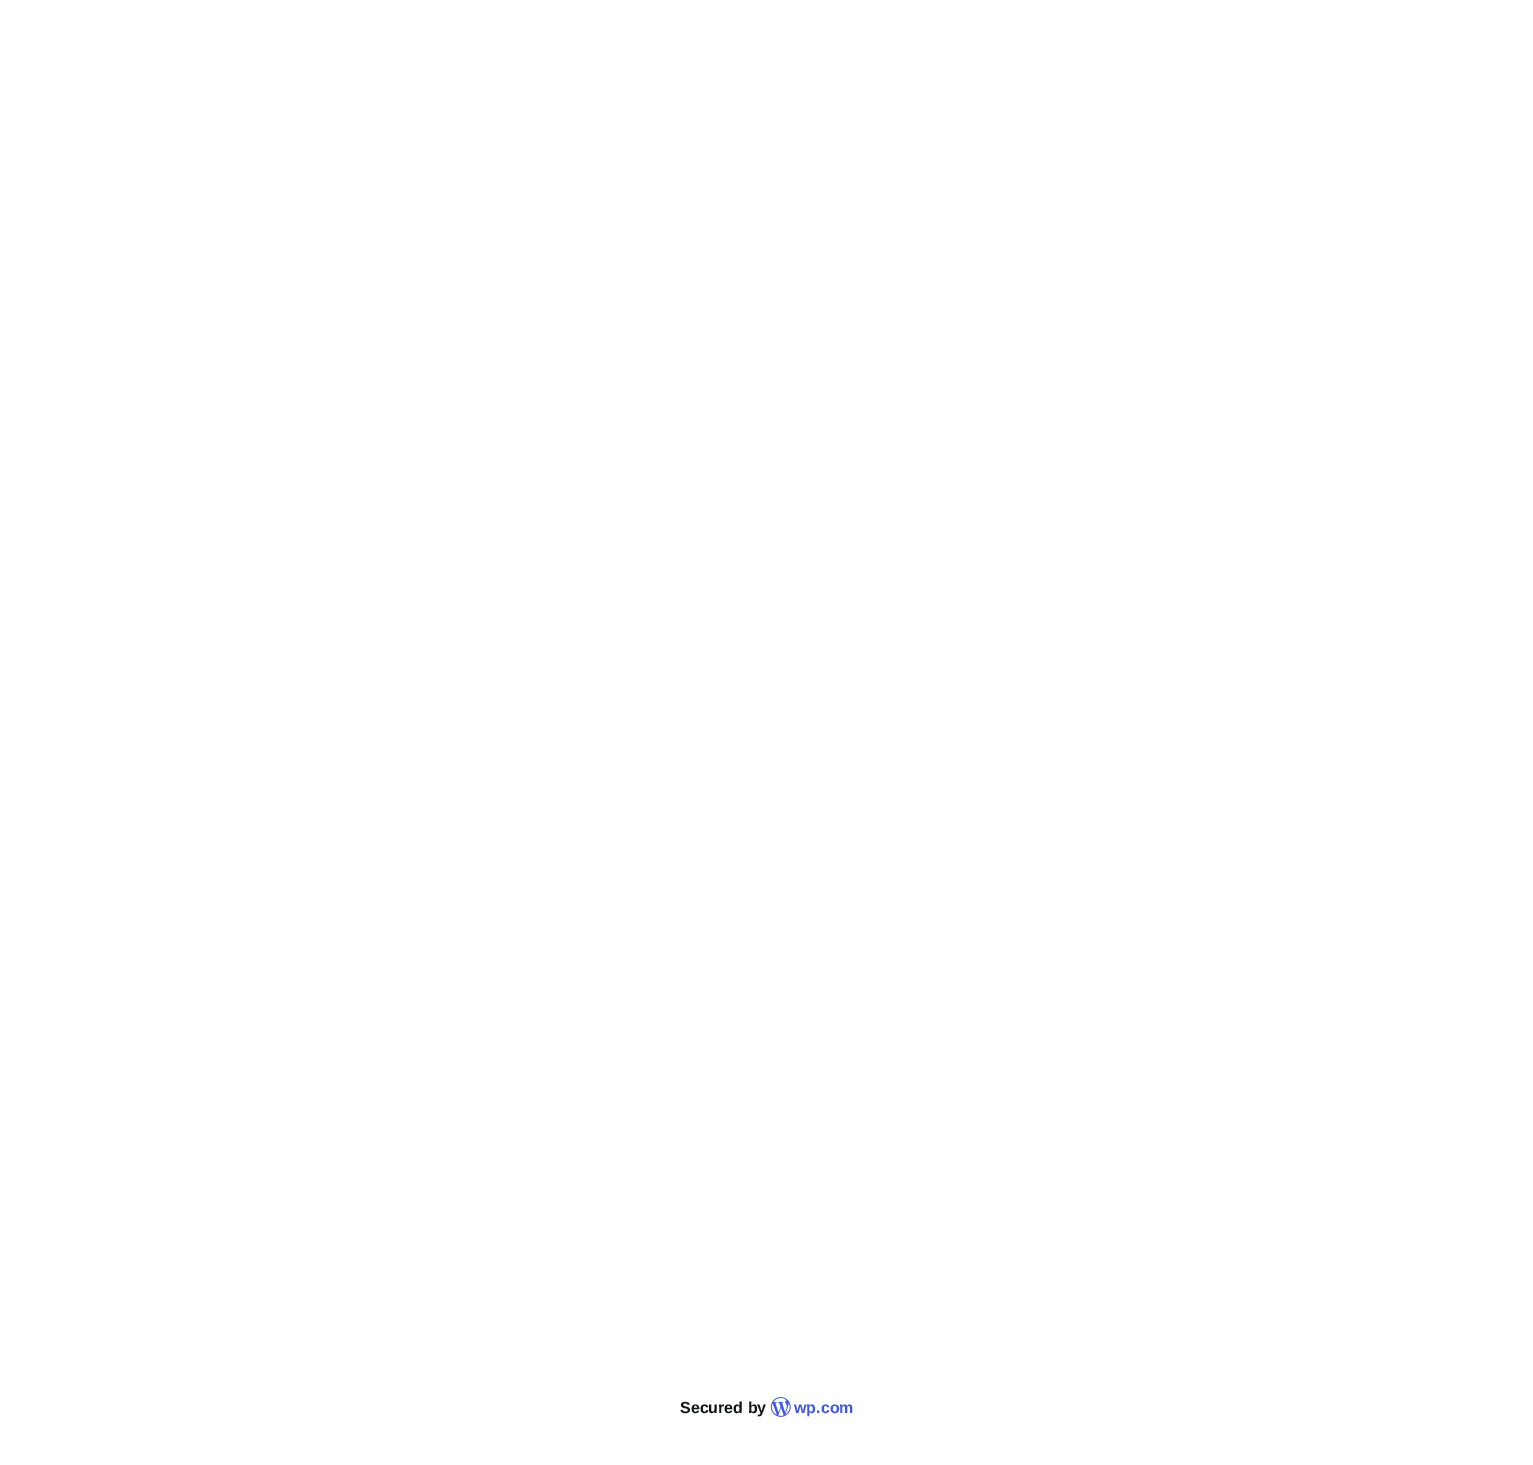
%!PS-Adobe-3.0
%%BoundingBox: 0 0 1533 1465
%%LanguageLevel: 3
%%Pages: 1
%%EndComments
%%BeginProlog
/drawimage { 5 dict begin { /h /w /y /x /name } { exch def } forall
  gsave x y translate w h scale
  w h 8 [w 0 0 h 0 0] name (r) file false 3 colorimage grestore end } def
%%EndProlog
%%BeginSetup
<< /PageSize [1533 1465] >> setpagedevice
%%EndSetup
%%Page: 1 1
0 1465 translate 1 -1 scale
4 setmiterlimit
1 setgray
0 0 1533 1465 rectfill
(images/1.raw) 770 1397 21 20 drawimage
/LiberationSans-Bold [16 0 0 -16 0 0] selectfont
0.067 0.082 0.086 setrgbcolor
680 1413 moveto (Secured by) show
0.247 0.345 0.878 setrgbcolor
794 1413 moveto (wp.com) show
showpage
%%EOF
